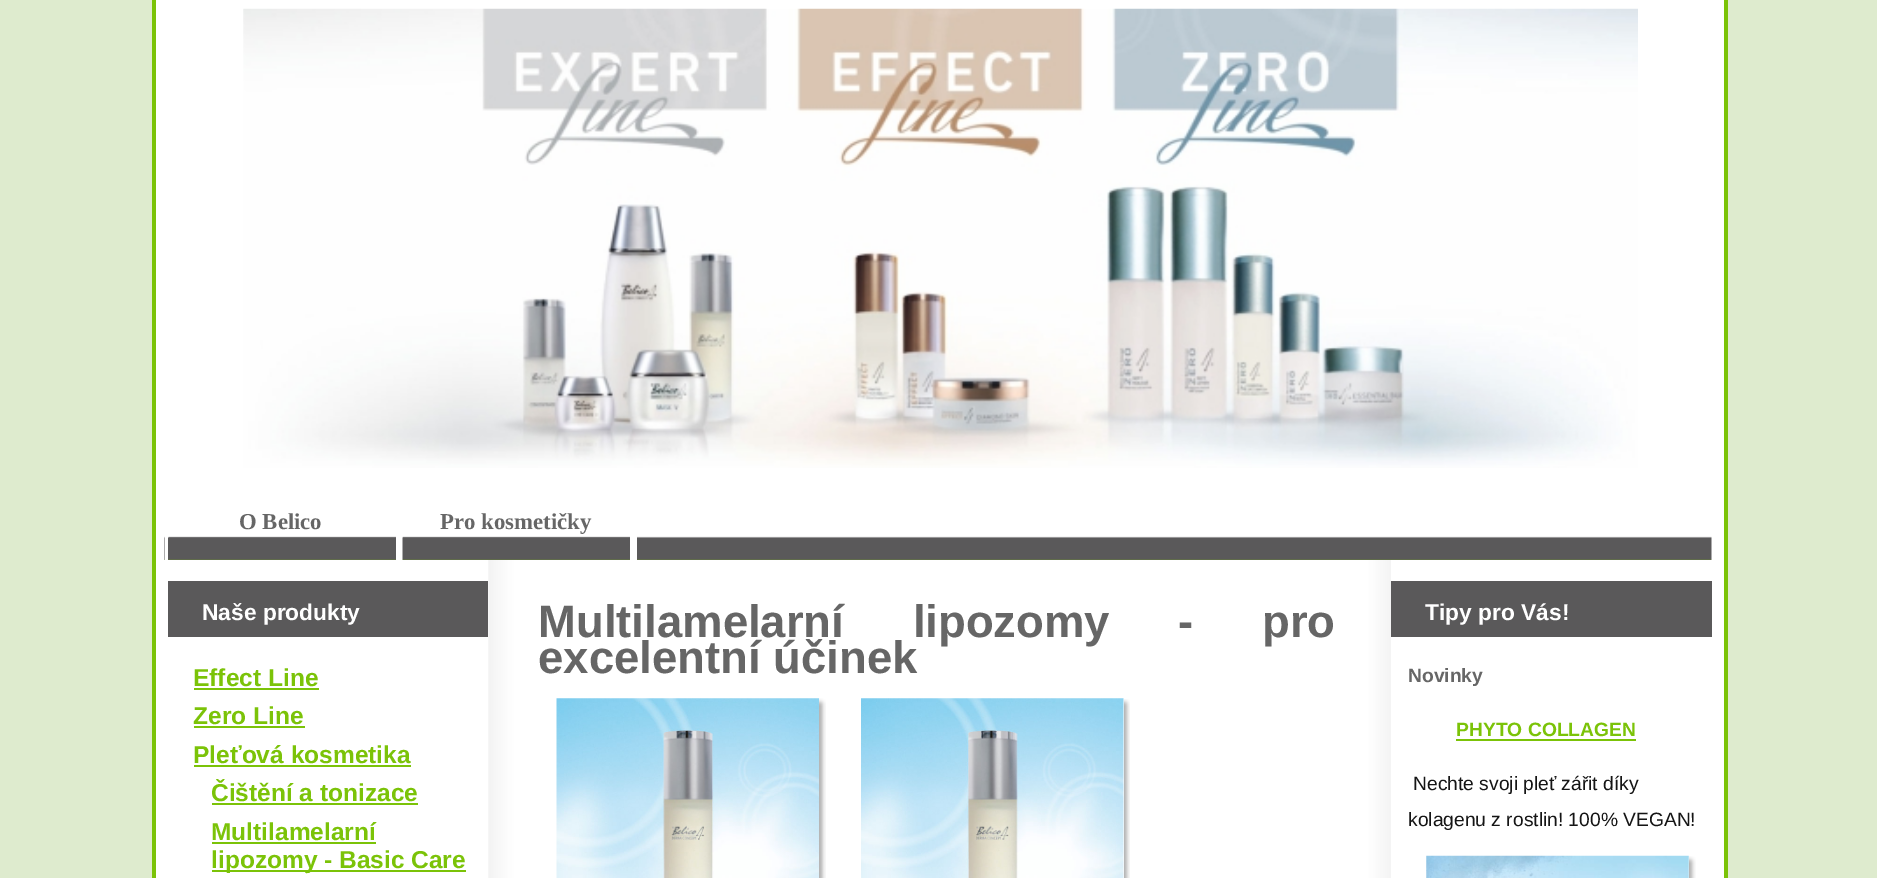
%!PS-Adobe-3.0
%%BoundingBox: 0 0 1877 878
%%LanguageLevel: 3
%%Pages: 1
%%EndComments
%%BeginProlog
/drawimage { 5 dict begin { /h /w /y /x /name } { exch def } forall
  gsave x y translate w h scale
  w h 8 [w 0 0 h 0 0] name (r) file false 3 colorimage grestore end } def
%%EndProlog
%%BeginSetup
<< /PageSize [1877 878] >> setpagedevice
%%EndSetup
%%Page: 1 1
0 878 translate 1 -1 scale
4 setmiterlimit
0.871 0.922 0.808 setrgbcolor
0 0 1877 878 rectfill
1 setgray
156 0 1568 878 rectfill
0.482 0.765 0.031 setrgbcolor
1724 0 4 878 rectfill
152 0 4 878 rectfill
(images/1.raw) 488 560 903 318 drawimage
(images/2.raw) 243 8 1395 460 drawimage
(images/3.raw) 164 536 1548 24 drawimage
1 setgray
165 536 4 24 rectfill
(images/4.raw) 168 536 228 24 drawimage
396 536 7 24 rectfill
(images/5.raw) 402 536 228 24 drawimage
630 536 7 24 rectfill
0.353 0.349 0.353 setrgbcolor
168 581 320 56 rectfill
0.482 0.765 0.031 setrgbcolor
194 688 125 2 rectfill
194 726 111 2 rectfill
194 765 217 2 rectfill
212 803 206 2 rectfill
212 842 164 2 rectfill
212 870 254 2 rectfill
(images/6.raw) 819 698 7 180 drawimage
(images/7.raw) 556 698 263 180 drawimage
(images/8.raw) 1124 699 6 179 drawimage
(images/9.raw) 861 698 263 180 drawimage
0.353 0.349 0.353 setrgbcolor
1391 581 321 56 rectfill
0.482 0.765 0.031 setrgbcolor
1456 739 180 2 rectfill
(images/10.raw) 1688 856 8 22 drawimage
(images/11.raw) 1426 855 263 23 drawimage
/LiberationSerif-Bold [22.75 0 0 -22.75 0 0] selectfont
0.4 setgray
239 529 moveto (O Belico) show
440 529 moveto (Pro kosmetičky) show
/LiberationSans-Bold [22.75 0 0 -22.75 0 0] selectfont
1 setgray
202 620 moveto (Naše produkty) show
/LiberationSans-Bold [24.5 0 0 -24.5 0 0] selectfont
0.482 0.765 0.031 setrgbcolor
193 686 moveto (Effect Line) show
193 724 moveto (Zero Line) show
193 763 moveto (Pleťová kosmetika) show
211 801 moveto (Čištění a tonizace) show
211 840 moveto (Multilamelarní) show
211 868 moveto (lipozomy - Basic Care) show
/LiberationSans-Bold [45.5 0 0 -45.5 0 0] selectfont
0.4 setgray
538 637 moveto 56 0 32 (Multilamelarní lipozomy) widthshow
1178 637 moveto 56 0 32 (- pro) widthshow
538 673 moveto (excelentní účinek) show
/LiberationSans-Bold [22.75 0 0 -22.75 0 0] selectfont
1 setgray
1425 620 moveto (Tipy pro Vás!) show
/LiberationSans-Bold [19.25 0 0 -19.25 0 0] selectfont
0.4 setgray
1408 682 moveto (Novinky) show
0.482 0.765 0.031 setrgbcolor
1456 736 moveto (PHYTO COLLAGEN) show
/LiberationSans-Regular [19.25 0 0 -19.25 0 0] selectfont
0.082 setgray
1413 790 moveto (Nechte svoji pleť zářit díky) show
1408 826 moveto (kolagenu z rostlin! 100% VEGAN!) show
showpage
%%EOF
